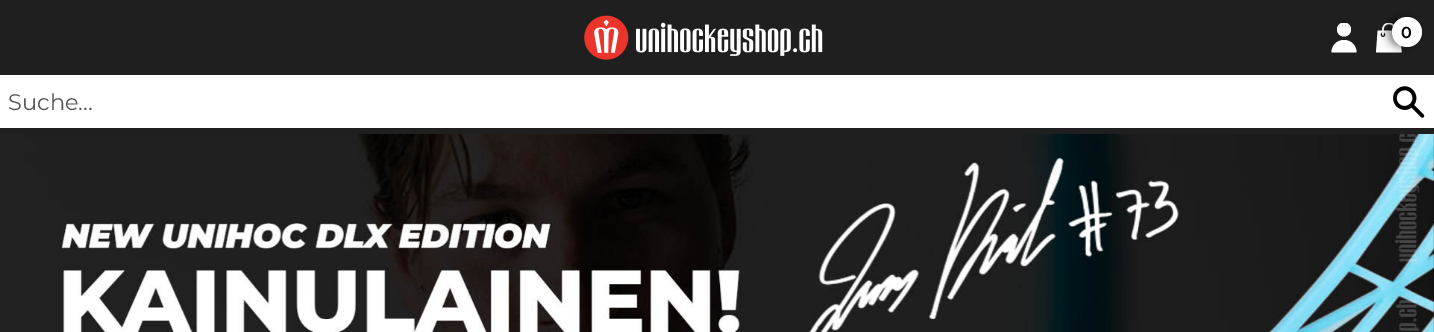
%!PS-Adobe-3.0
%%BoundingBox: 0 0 1434 332
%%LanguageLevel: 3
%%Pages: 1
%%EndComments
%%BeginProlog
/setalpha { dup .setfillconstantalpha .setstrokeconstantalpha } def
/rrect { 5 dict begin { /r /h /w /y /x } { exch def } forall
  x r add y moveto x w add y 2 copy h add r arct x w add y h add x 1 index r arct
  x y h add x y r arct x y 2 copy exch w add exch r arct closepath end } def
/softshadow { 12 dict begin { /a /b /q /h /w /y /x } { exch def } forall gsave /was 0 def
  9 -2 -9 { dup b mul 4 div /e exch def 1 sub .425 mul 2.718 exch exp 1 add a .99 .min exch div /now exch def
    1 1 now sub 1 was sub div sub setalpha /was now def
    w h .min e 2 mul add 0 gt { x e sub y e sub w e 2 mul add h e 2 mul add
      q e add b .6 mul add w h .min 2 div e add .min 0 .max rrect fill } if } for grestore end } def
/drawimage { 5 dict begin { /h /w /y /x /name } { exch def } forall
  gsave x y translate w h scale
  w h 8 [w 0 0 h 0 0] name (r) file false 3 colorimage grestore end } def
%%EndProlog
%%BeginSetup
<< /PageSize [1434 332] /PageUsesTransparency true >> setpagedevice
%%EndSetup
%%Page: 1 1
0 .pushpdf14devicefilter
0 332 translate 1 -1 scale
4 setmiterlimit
1 setgray
0 0 1434 332 rectfill
0.122 setgray
0 0 1434 134 rectfill
(images/1.raw) 584 15 239 45 drawimage
gsave
1329 23 30 30 rectclip
1 setgray
newpath 1344 29.5 7 0 360 arc closepath fill
grestore
1 setgray
newpath 1344 40 moveto 1337 40 1331.5 45.5 1331.5 52.5 curveto 1356.5 52.5 lineto 1356.5 45.5 1351 40 1344 40 curveto closepath fill
(images/2.raw) 1376 23 26 30 drawimage
0 setgray
1388 17 30 30 15 4.5 0.5 softshadow
1 setgray
newpath 1407 32 15 0 360 arc closepath fill
0 75 1434 53 rectfill
(images/3.raw) 1393 86 32 32 drawimage
(images/4.raw) 0 134 1434 198 drawimage
/Montserrat-Thin [16 0 0 -16 0 0] selectfont
0 setgray
1401 38 moveto (0) show
/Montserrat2-Thin [22.5 0 0 -22.5 0 0] selectfont
0.341 setgray
8 110 moveto (Suche...) show
.poppdf14devicefilter showpage
%%EOF
